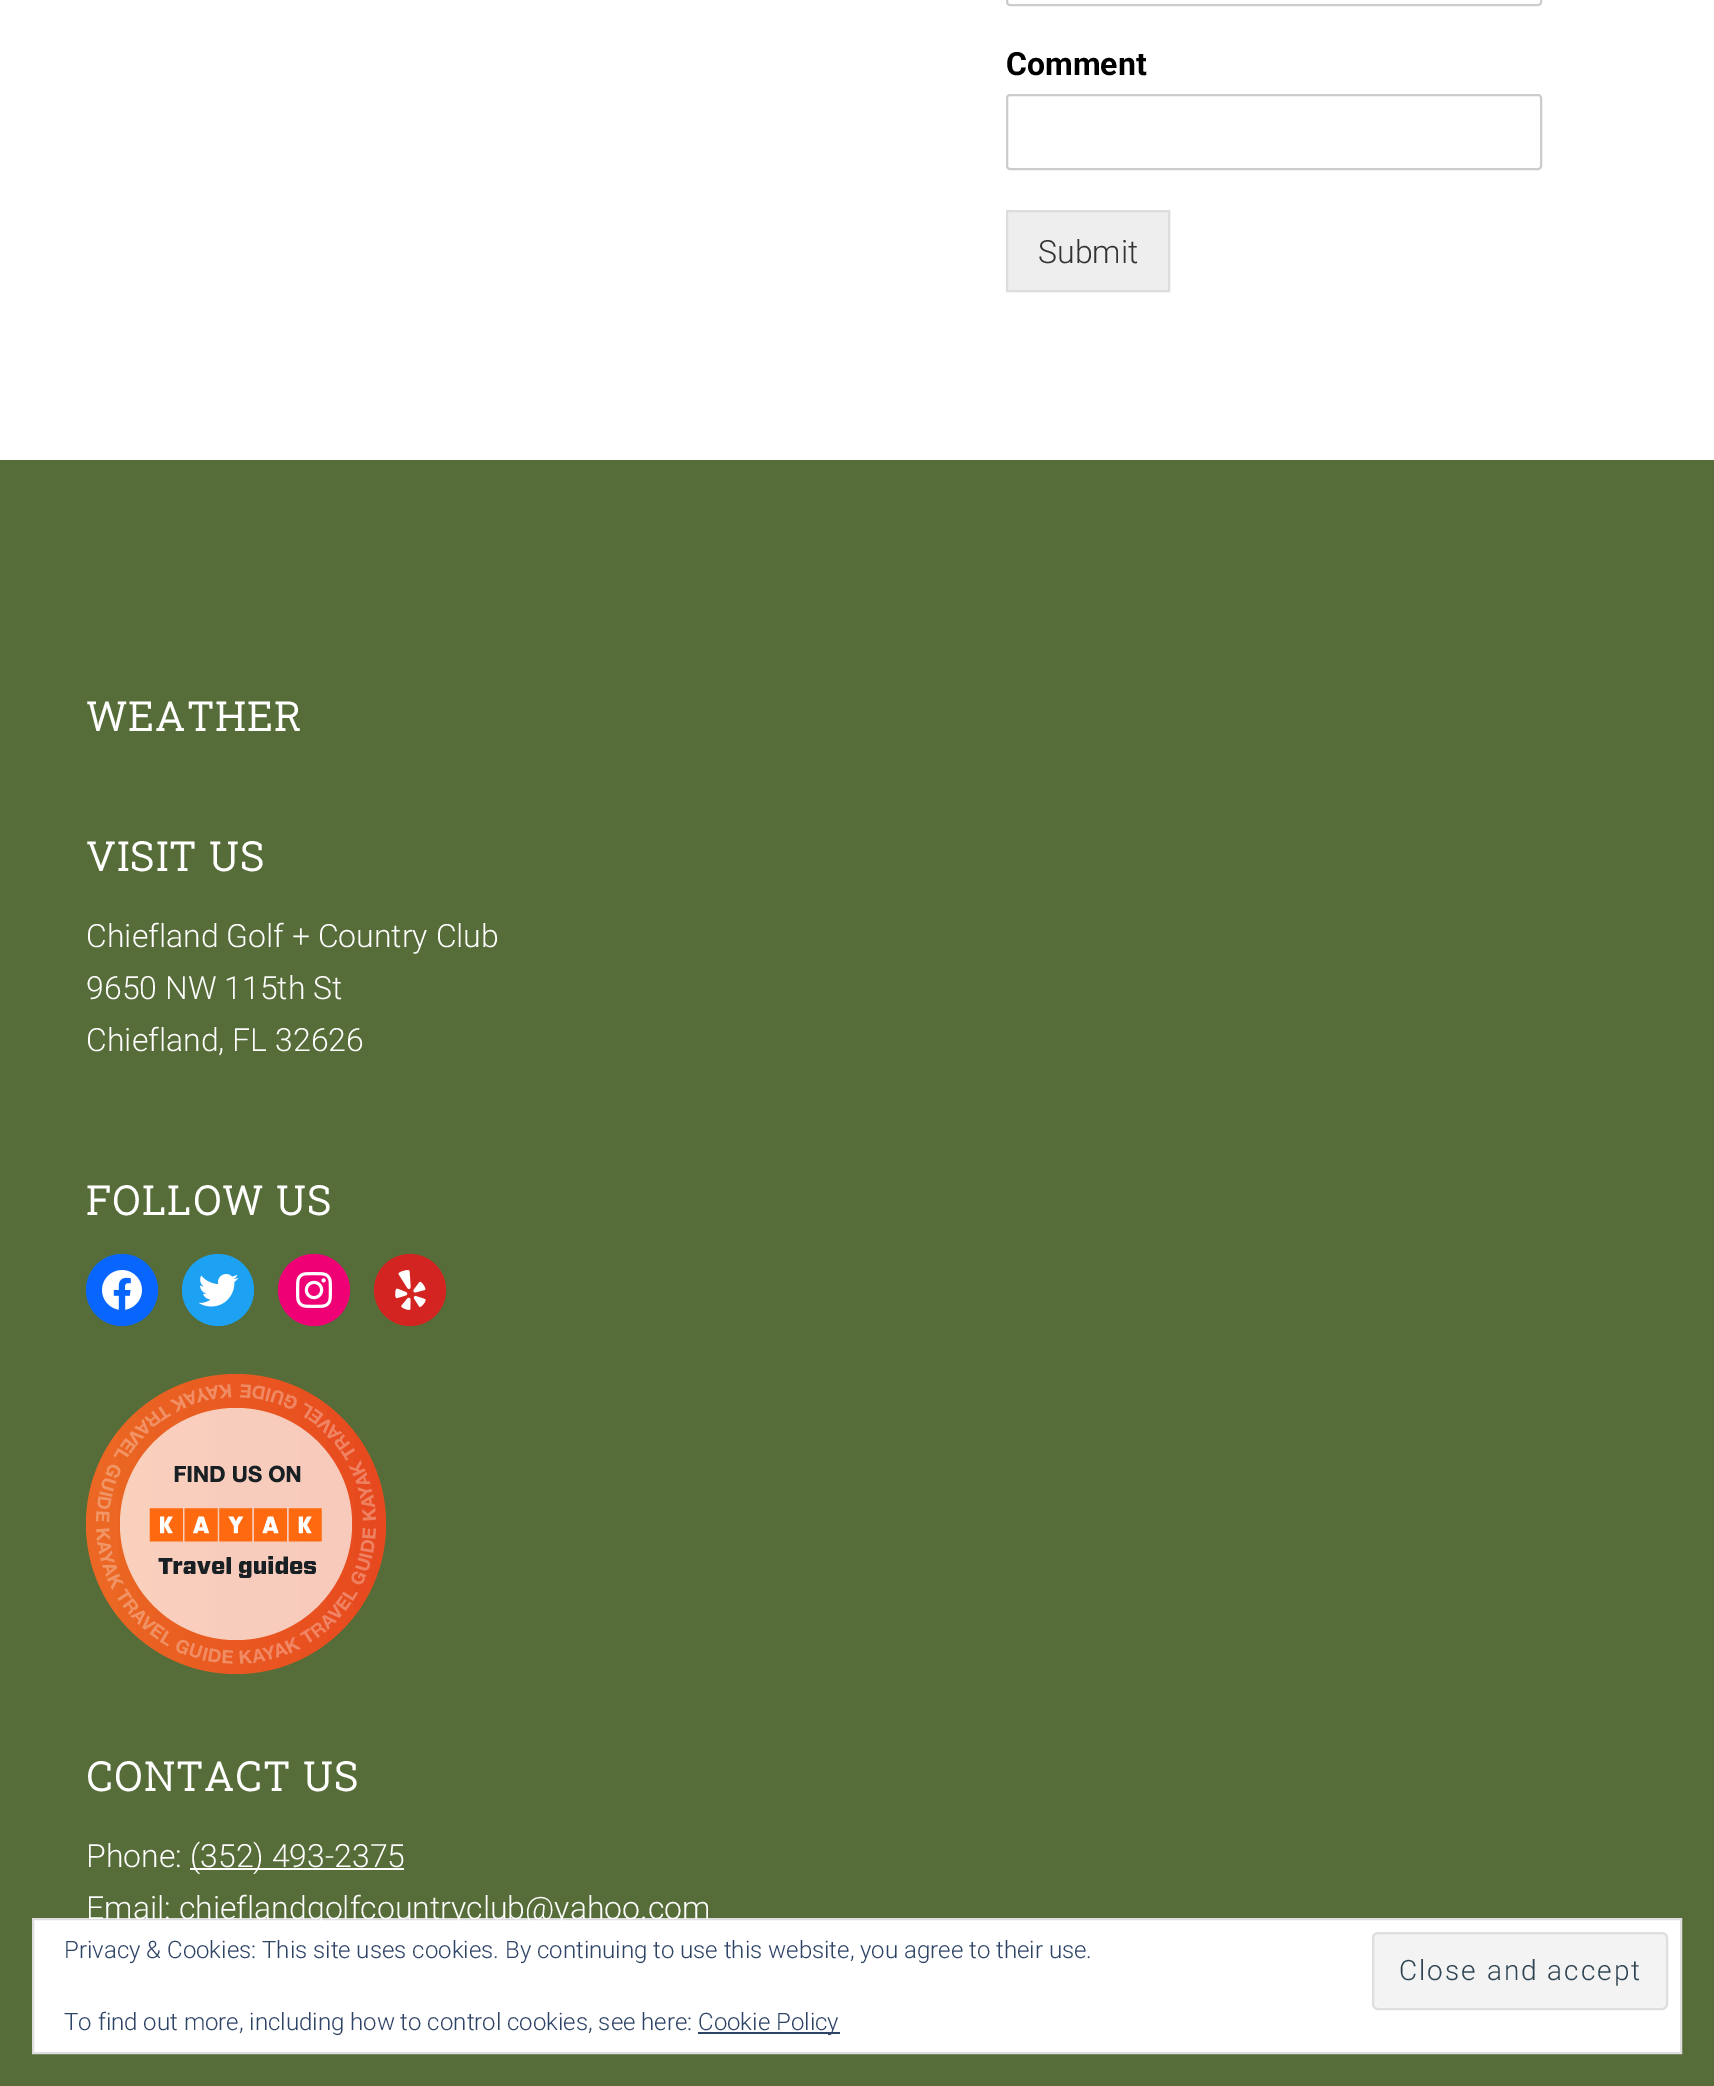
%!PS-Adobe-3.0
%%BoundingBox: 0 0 1714 2086
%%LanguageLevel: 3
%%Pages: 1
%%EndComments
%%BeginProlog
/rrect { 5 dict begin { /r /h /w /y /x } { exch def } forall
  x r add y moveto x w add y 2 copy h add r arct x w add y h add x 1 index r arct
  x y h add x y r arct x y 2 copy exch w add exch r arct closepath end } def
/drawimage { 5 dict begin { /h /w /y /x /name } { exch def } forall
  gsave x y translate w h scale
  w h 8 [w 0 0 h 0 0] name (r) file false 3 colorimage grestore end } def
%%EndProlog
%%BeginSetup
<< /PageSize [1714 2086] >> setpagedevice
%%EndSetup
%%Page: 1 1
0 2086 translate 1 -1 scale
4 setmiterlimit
1 setgray
0 0 1714 2086 rectfill
0.8 setgray
2 setlinewidth
1007 -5 534 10 3 rrect stroke
1007 95 534 74 3 rrect stroke
0.933 setgray
newpath 1007 211 moveto 1169 211 lineto 1169 291 lineto 1007 291 lineto closepath gsave fill grestore
0.867 setgray
stroke
0.341 0.427 0.224 setrgbcolor
0 460 1714 1626 rectfill
0.031 0.4 1 setrgbcolor
newpath 122 1290 36 0 360 arc closepath fill
(images/1.raw) 102 1270 40 40 drawimage
0.114 0.631 0.949 setrgbcolor
newpath 218 1290 36 0 360 arc closepath fill
(images/2.raw) 198 1274 41 33 drawimage
0.941 0 0.459 setrgbcolor
newpath 314 1290 36 0 360 arc closepath fill
(images/3.raw) 296 1272 36 36 drawimage
0.827 0.141 0.133 setrgbcolor
newpath 410 1290 36 0 360 arc closepath fill
(images/4.raw) 395 1270 31 40 drawimage
(images/5.raw) 86 1374 300 300 drawimage
1 setgray
190 1868 214 2 rectfill
newpath 33 1919 moveto 1681 1919 lineto 1681 2053 lineto 33 2053 lineto closepath gsave fill grestore
0.871 setgray
stroke
0.953 setgray
1373 1933 294 76 5 rrect gsave fill grestore
0.871 setgray
stroke
0.18 0.267 0.404 setrgbcolor
698 2032 142 2 rectfill
/Roboto-Bold [32 0 0 -32 0 0] selectfont
0 setgray
1006 75 moveto (Comment) show
/Roboto-Light [32 0 0 -32 0 0] selectfont
0.2 setgray
1038 263 moveto (Submit) show
/RobotoSlab-Bold [40 0 0 -40 0 0] selectfont
1 setgray
86 731 moveto 2 0 (WEATHER) ashow
86 871 moveto 2 0 (VISIT US) ashow
/Roboto-Light [32 0 0 -32 0 0] selectfont
86 947 moveto (Chiefland Golf + Country Club) show
86 999 moveto (9650 NW 115th St) show
86 1051 moveto (Chiefland, FL 32626) show
/RobotoSlab-Bold [40 0 0 -40 0 0] selectfont
86 1215 moveto 2 0 (FOLLOW US) ashow
86 1791 moveto 2 0 (CONTACT US) ashow
/Roboto-Light [32 0 0 -32 0 0] selectfont
86 1867 moveto (Phone:) show
190 1867 moveto (\(352\) 493-2375) show
86 1919 moveto (Email: chieflandgolfcountryclub@yahoo.com) show
/Roboto-Light [24 0 0 -24 0 0] selectfont
0.18 0.267 0.404 setrgbcolor
64 1958 moveto (Privacy & Cookies: This site uses cookies. By continuing to use this website, you agree to their use.) show
/Roboto-Light [28 0 0 -28 0 0] selectfont
0.18 0.267 0.325 setrgbcolor
1399 1980 moveto 2 0 (Close and accept) ashow
/Roboto-Light [24 0 0 -24 0 0] selectfont
0.18 0.267 0.404 setrgbcolor
64 2030 moveto (To find out more, including how to control cookies, see here:) show
698 2030 moveto (Cookie Policy) show
showpage
%%EOF
